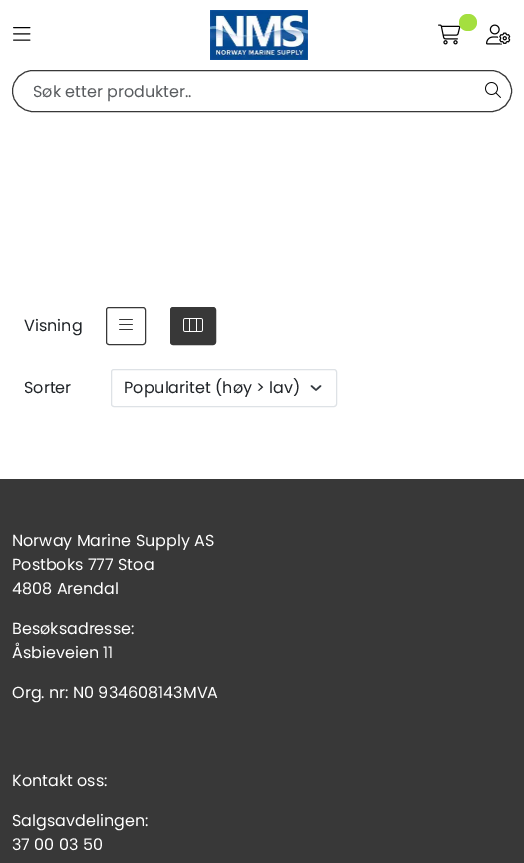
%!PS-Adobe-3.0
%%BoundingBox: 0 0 524 863
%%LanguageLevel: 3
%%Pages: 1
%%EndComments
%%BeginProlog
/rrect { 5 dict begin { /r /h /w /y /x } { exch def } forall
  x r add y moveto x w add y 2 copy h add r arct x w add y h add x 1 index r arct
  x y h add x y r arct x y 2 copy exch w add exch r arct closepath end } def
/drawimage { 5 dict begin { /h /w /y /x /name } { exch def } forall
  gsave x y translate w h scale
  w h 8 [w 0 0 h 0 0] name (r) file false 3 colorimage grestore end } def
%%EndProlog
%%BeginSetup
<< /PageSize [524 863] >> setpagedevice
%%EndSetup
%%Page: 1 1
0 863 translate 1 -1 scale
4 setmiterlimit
1 setgray
0 0 524 863 rectfill
(images/1.raw) 13 27 18 14 drawimage
(images/2.raw) 210 10 98 50 drawimage
(images/3.raw) 438 24 23 21 drawimage
0.643 0.875 0.247 setrgbcolor
459 14 18 17 8.5 rrect fill
(images/4.raw) 486 24 25 21 drawimage
0.22 setgray
12.5 70.5 499 41 20.5 rrect stroke
(images/5.raw) 485 82 16 16 drawimage
106.5 307.5 39 37 2.5 rrect stroke
(images/6.raw) 119 319 14 11 drawimage
170.5 307.5 45 37 2.5 rrect gsave fill grestore
stroke
(images/7.raw) 183 318 20 14 drawimage
0.204 0.227 0.251 setrgbcolor
1.5 setlinewidth
1 setlinecap
1 setlinejoin
newpath 311.5 386 moveto 316 390 lineto 320.5 386 lineto stroke
0.871 0.886 0.902 setrgbcolor
1 setlinewidth
0 setlinecap
0 setlinejoin
111.5 369.5 225 37 2.5 rrect stroke
0.22 setgray
0 479 524 384 rectfill
/Poppins-Regular [16 0 0 -16 0 0] selectfont
0.349 0.361 0.373 setrgbcolor
33 97 moveto (Søk etter produkter..) show
0.129 0.145 0.161 setrgbcolor
24 331 moveto (Visning) show
24 393 moveto (Sorter) show
124 393 moveto (Popularitet \(høy > lav\)) show
1 setgray
12 546 moveto (Norway Marine Supply AS) show
12 570 moveto (Postboks 777 Stoa) show
12 594 moveto (4808 Arendal) show
12 634 moveto (Besøksadresse:) show
12 658 moveto (Åsbieveien 11) show
12 698 moveto (Org. nr: N0 934608143MVA) show
12 786 moveto (Kontakt oss:) show
12 826 moveto (Salgsavdelingen:) show
12 850 moveto (37 00 03 50) show
showpage
%%EOF
